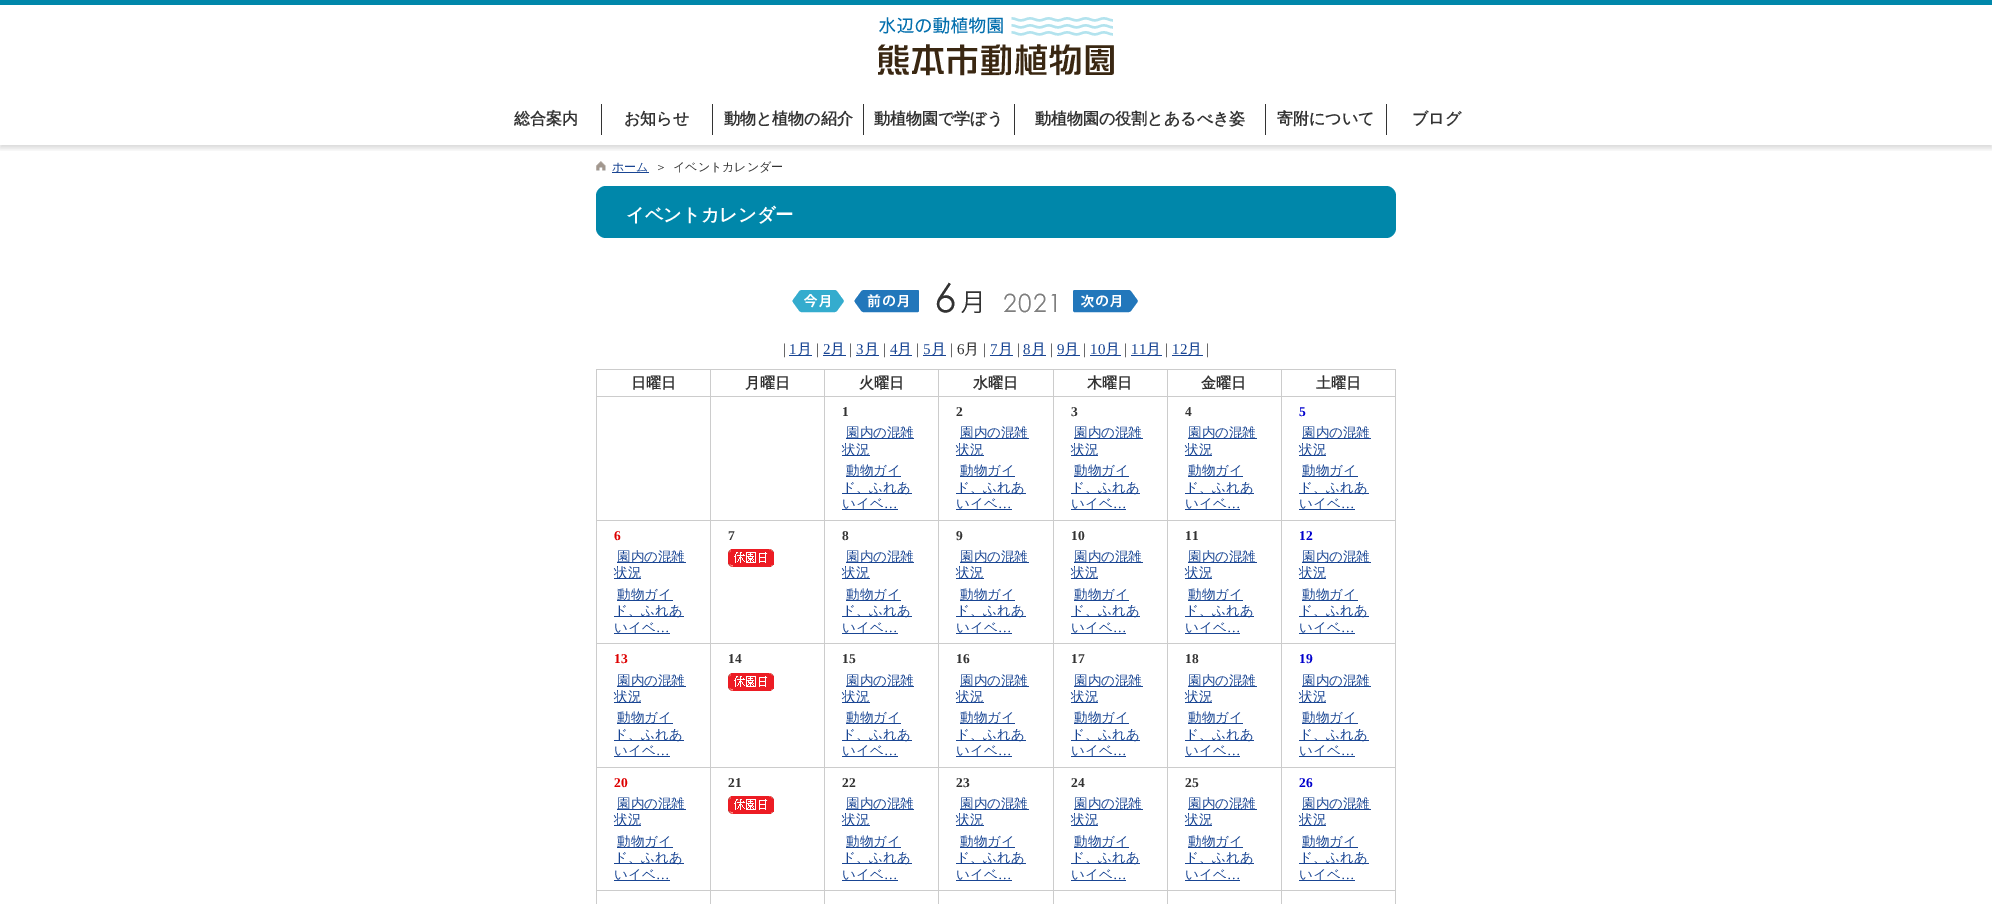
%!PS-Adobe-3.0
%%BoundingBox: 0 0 1992 904
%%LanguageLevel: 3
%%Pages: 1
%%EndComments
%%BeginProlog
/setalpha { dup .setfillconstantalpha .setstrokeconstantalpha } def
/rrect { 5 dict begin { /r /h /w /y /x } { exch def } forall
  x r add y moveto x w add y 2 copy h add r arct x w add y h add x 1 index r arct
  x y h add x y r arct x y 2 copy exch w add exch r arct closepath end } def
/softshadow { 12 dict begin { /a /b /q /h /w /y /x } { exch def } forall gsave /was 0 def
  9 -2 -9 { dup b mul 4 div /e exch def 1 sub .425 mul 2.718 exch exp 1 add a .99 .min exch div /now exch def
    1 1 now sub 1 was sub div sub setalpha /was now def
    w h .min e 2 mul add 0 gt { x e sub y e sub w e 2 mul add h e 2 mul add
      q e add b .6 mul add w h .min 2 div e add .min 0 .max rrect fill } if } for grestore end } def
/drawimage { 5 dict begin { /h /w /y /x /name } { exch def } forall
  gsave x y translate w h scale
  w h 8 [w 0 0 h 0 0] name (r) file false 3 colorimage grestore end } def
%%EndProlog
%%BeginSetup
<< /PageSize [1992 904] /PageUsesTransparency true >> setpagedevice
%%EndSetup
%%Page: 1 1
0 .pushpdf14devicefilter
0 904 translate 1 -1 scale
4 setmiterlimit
1 setgray
0 0 1992 904 rectfill
0 0.529 0.667 setrgbcolor
0 0 1992 5 rectfill
gsave
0 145 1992 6 rectclip
0 setgray
0 8 1992 140 0 3 0.16 softshadow
grestore
(images/1.raw) 878 17 236 59 drawimage
0.2 setgray
601 104 1 31 rectfill
712 104 1 31 rectfill
863 104 1 31 rectfill
1014 104 1 31 rectfill
1265 104 1 31 rectfill
1386 104 1 31 rectfill
(images/2.raw) 596 161 10 10 drawimage
0.098 0.271 0.576 setrgbcolor
612 172 37 1 rectfill
0 0.529 0.667 setrgbcolor
596 186 800 52 10 rrect fill
(images/3.raw) 792 290 52 23 drawimage
(images/4.raw) 854 290 65 23 drawimage
(images/5.raw) 936 282 19 31 drawimage
(images/6.raw) 961 291 20 22 drawimage
(images/7.raw) 1004 293 12 19 drawimage
(images/8.raw) 1018 293 13 20 drawimage
(images/7.raw) 1034 293 12 19 drawimage
(images/9.raw) 1051 294 5 18 drawimage
(images/10.raw) 1073 290 65 23 drawimage
0.098 0.271 0.576 setrgbcolor
789 355 23 1 rectfill
823 355 23 1 rectfill
856 355 23 1 rectfill
890 355 22 1 rectfill
923 355 23 1 rectfill
990 355 23 1 rectfill
1023 355 23 1 rectfill
1057 355 23 1 rectfill
1090 355 31 1 rectfill
1131 355 31 1 rectfill
1172 355 31 1 rectfill
0.8 setgray
596 369 800 1 rectfill
1395 369 1 535 rectfill
596 369 1 535 rectfill
1281 396 115 1 rectfill
1281 520 115 1 rectfill
1281 643 115 1 rectfill
1281 767 115 1 rectfill
1281 890 115 1 rectfill
1281 890 1 14 rectfill
1167 890 115 1 rectfill
1281 767 1 124 rectfill
1167 767 115 1 rectfill
1281 643 1 125 rectfill
1167 643 115 1 rectfill
1281 520 1 124 rectfill
1167 520 115 1 rectfill
1281 396 1 125 rectfill
1167 396 115 1 rectfill
1167 890 1 14 rectfill
1053 890 115 1 rectfill
1167 767 1 124 rectfill
1053 767 115 1 rectfill
1167 643 1 125 rectfill
1053 643 115 1 rectfill
1167 520 1 124 rectfill
1053 520 115 1 rectfill
1167 396 1 125 rectfill
1053 396 115 1 rectfill
1053 890 1 14 rectfill
938 890 116 1 rectfill
1053 767 1 124 rectfill
938 767 116 1 rectfill
1053 643 1 125 rectfill
938 643 116 1 rectfill
1053 520 1 124 rectfill
938 520 116 1 rectfill
1053 396 1 125 rectfill
938 396 116 1 rectfill
938 890 1 14 rectfill
824 890 115 1 rectfill
938 767 1 124 rectfill
824 767 115 1 rectfill
938 643 1 125 rectfill
824 643 115 1 rectfill
938 520 1 124 rectfill
824 520 115 1 rectfill
938 396 1 125 rectfill
824 396 115 1 rectfill
824 890 1 14 rectfill
710 890 115 1 rectfill
824 767 1 124 rectfill
710 767 115 1 rectfill
824 643 1 125 rectfill
710 643 115 1 rectfill
824 520 1 124 rectfill
710 520 115 1 rectfill
824 396 1 125 rectfill
710 396 115 1 rectfill
710 890 1 14 rectfill
596 890 115 1 rectfill
710 767 1 124 rectfill
596 767 115 1 rectfill
710 643 1 125 rectfill
596 643 115 1 rectfill
710 520 1 124 rectfill
596 520 115 1 rectfill
710 396 1 125 rectfill
596 396 115 1 rectfill
710 369 1 28 rectfill
824 369 1 28 rectfill
938 369 1 28 rectfill
1053 369 1 28 rectfill
1167 369 1 28 rectfill
1281 369 1 28 rectfill
0.098 0.271 0.576 setrgbcolor
846 438 68 1 rectfill
842 455 28 1 rectfill
846 476 55 1 rectfill
842 493 70 1 rectfill
842 509 56 1 rectfill
960 438 69 1 rectfill
956 455 28 1 rectfill
960 476 55 1 rectfill
956 493 70 1 rectfill
956 509 56 1 rectfill
1074 438 69 1 rectfill
1071 455 27 1 rectfill
1074 476 55 1 rectfill
1071 493 69 1 rectfill
1071 509 55 1 rectfill
1188 438 69 1 rectfill
1185 455 27 1 rectfill
1188 476 55 1 rectfill
1185 493 69 1 rectfill
1185 509 55 1 rectfill
1302 438 69 1 rectfill
1299 455 27 1 rectfill
1302 476 56 1 rectfill
1299 493 70 1 rectfill
1299 509 56 1 rectfill
617 562 69 1 rectfill
614 578 27 1 rectfill
617 600 56 1 rectfill
614 616 70 1 rectfill
614 633 56 1 rectfill
(images/11.raw) 728 549 46 18 drawimage
846 562 68 1 rectfill
842 578 28 1 rectfill
846 600 55 1 rectfill
842 616 70 1 rectfill
842 633 56 1 rectfill
960 562 69 1 rectfill
956 578 28 1 rectfill
960 600 55 1 rectfill
956 616 70 1 rectfill
956 633 56 1 rectfill
1074 562 69 1 rectfill
1071 578 27 1 rectfill
1074 600 55 1 rectfill
1071 616 69 1 rectfill
1071 633 55 1 rectfill
1188 562 69 1 rectfill
1185 578 27 1 rectfill
1188 600 55 1 rectfill
1185 616 69 1 rectfill
1185 633 55 1 rectfill
1302 562 69 1 rectfill
1299 578 27 1 rectfill
1302 600 56 1 rectfill
1299 616 70 1 rectfill
1299 633 56 1 rectfill
617 686 69 1 rectfill
614 702 27 1 rectfill
617 723 56 1 rectfill
614 740 70 1 rectfill
614 756 56 1 rectfill
(images/11.raw) 728 673 46 18 drawimage
846 686 68 1 rectfill
842 702 28 1 rectfill
846 723 55 1 rectfill
842 740 70 1 rectfill
842 756 56 1 rectfill
960 686 69 1 rectfill
956 702 28 1 rectfill
960 723 55 1 rectfill
956 740 70 1 rectfill
956 756 56 1 rectfill
1074 686 69 1 rectfill
1071 702 27 1 rectfill
1074 723 55 1 rectfill
1071 740 69 1 rectfill
1071 756 55 1 rectfill
1188 686 69 1 rectfill
1185 702 27 1 rectfill
1188 723 55 1 rectfill
1185 740 69 1 rectfill
1185 756 55 1 rectfill
1302 686 69 1 rectfill
1299 702 27 1 rectfill
1302 723 56 1 rectfill
1299 740 70 1 rectfill
1299 756 56 1 rectfill
617 809 69 1 rectfill
614 825 27 1 rectfill
617 847 56 1 rectfill
614 863 70 1 rectfill
614 880 56 1 rectfill
(images/11.raw) 728 796 46 18 drawimage
846 809 68 1 rectfill
842 825 28 1 rectfill
846 847 55 1 rectfill
842 863 70 1 rectfill
842 880 56 1 rectfill
960 809 69 1 rectfill
956 825 28 1 rectfill
960 847 55 1 rectfill
956 863 70 1 rectfill
956 880 56 1 rectfill
1074 809 69 1 rectfill
1071 825 27 1 rectfill
1074 847 55 1 rectfill
1071 863 69 1 rectfill
1071 880 55 1 rectfill
1188 809 69 1 rectfill
1185 825 27 1 rectfill
1188 847 55 1 rectfill
1185 863 69 1 rectfill
1185 880 55 1 rectfill
1302 809 69 1 rectfill
1299 825 27 1 rectfill
1302 847 56 1 rectfill
1299 863 70 1 rectfill
1299 880 56 1 rectfill
/WenQuanYiZenHei-Bold [16 0 0 -16 0 0] selectfont
0.2 setgray
514 124 moveto (総合案内) show
624 124 moveto (お知らせ) show
724 124 moveto (動物と植物の紹介) show
874 124 moveto (動植物園で学ぼう) show
1035 124 moveto (動植物園の役割とあるべき姿) show
1277 124 moveto (寄附について) show
1412 124 moveto (ブログ) show
/WenQuanYiZenHei-Medium [12 0 0 -12 0 0] selectfont
0.098 0.271 0.576 setrgbcolor
612 171 moveto (ホーム) show
0.2 setgray
655 171 moveto (＞) show
673 171 moveto (イベントカレンダー) show
/WenQuanYiZenHei-Bold [18.25 0 0 -18.25 0 0] selectfont
1 setgray
626 221 moveto (イベントカレンダー) show
/LiberationSerif-Regular [15 0 0 -15 0 0] selectfont
0.2 setgray
783 354 moveto (|) show
0.098 0.271 0.576 setrgbcolor
789 354 moveto (1) show
/WenQuanYiZenHei-Medium [15 0 0 -15 0 0] selectfont
797 354 moveto (月) show
/LiberationSerif-Regular [15 0 0 -15 0 0] selectfont
0.2 setgray
816 354 moveto (|) show
0.098 0.271 0.576 setrgbcolor
823 354 moveto (2) show
/WenQuanYiZenHei-Medium [15 0 0 -15 0 0] selectfont
830 354 moveto (月) show
/LiberationSerif-Regular [15 0 0 -15 0 0] selectfont
0.2 setgray
849 354 moveto (|) show
0.098 0.271 0.576 setrgbcolor
856 354 moveto (3) show
/WenQuanYiZenHei-Medium [15 0 0 -15 0 0] selectfont
864 354 moveto (月) show
/LiberationSerif-Regular [15 0 0 -15 0 0] selectfont
0.2 setgray
883 354 moveto (|) show
0.098 0.271 0.576 setrgbcolor
890 354 moveto (4) show
/WenQuanYiZenHei-Medium [15 0 0 -15 0 0] selectfont
897 354 moveto (月) show
/LiberationSerif-Regular [15 0 0 -15 0 0] selectfont
0.2 setgray
916 354 moveto (|) show
0.098 0.271 0.576 setrgbcolor
923 354 moveto (5) show
/WenQuanYiZenHei-Medium [15 0 0 -15 0 0] selectfont
931 354 moveto (月) show
/LiberationSerif-Regular [15 0 0 -15 0 0] selectfont
0.2 setgray
950 354 moveto (| 6) show
/WenQuanYiZenHei-Medium [15 0 0 -15 0 0] selectfont
964 354 moveto (月) show
/LiberationSerif-Regular [15 0 0 -15 0 0] selectfont
983 354 moveto (|) show
0.098 0.271 0.576 setrgbcolor
990 354 moveto (7) show
/WenQuanYiZenHei-Medium [15 0 0 -15 0 0] selectfont
998 354 moveto (月) show
/LiberationSerif-Regular [15 0 0 -15 0 0] selectfont
0.2 setgray
1017 354 moveto (|) show
0.098 0.271 0.576 setrgbcolor
1023 354 moveto (8) show
/WenQuanYiZenHei-Medium [15 0 0 -15 0 0] selectfont
1031 354 moveto (月) show
/LiberationSerif-Regular [15 0 0 -15 0 0] selectfont
0.2 setgray
1050 354 moveto (|) show
0.098 0.271 0.576 setrgbcolor
1057 354 moveto (9) show
/WenQuanYiZenHei-Medium [15 0 0 -15 0 0] selectfont
1064 354 moveto (月) show
/LiberationSerif-Regular [15 0 0 -15 0 0] selectfont
0.2 setgray
1083 354 moveto (|) show
0.098 0.271 0.576 setrgbcolor
1090 354 moveto (10) show
/WenQuanYiZenHei-Medium [15 0 0 -15 0 0] selectfont
1105 354 moveto (月) show
/LiberationSerif-Regular [15 0 0 -15 0 0] selectfont
0.2 setgray
1124 354 moveto (|) show
0.098 0.271 0.576 setrgbcolor
1131 354 moveto (11) show
/WenQuanYiZenHei-Medium [15 0 0 -15 0 0] selectfont
1146 354 moveto (月) show
/LiberationSerif-Regular [15 0 0 -15 0 0] selectfont
0.2 setgray
1165 354 moveto (|) show
0.098 0.271 0.576 setrgbcolor
1172 354 moveto (12) show
/WenQuanYiZenHei-Medium [15 0 0 -15 0 0] selectfont
1187 354 moveto (月) show
/LiberationSerif-Regular [15 0 0 -15 0 0] selectfont
0.2 setgray
1206 354 moveto (|) show
/WenQuanYiZenHei-Bold [15 0 0 -15 0 0] selectfont
631 388 moveto (日曜日) show
745 388 moveto (月曜日) show
859 388 moveto (火曜日) show
973 388 moveto (水曜日) show
1087 388 moveto (木曜日) show
1201 388 moveto (金曜日) show
1316 388 moveto (土曜日) show
/LiberationSerif-Bold [13.5 0 0 -13.5 0 0] selectfont
842 416 moveto (1) show
/WenQuanYiZenHei-Medium [13.5 0 0 -13.5 0 0] selectfont
0.098 0.271 0.576 setrgbcolor
846 437 moveto (園内の混雑) show
842 454 moveto (状況) show
846 475 moveto (動物ガイ) show
842 492 moveto (ド、ふれあ) show
842 508 moveto (いイベ) show
/LiberationSerif-Regular [13.5 0 0 -13.5 0 0] selectfont
884 508 moveto (…) show
/LiberationSerif-Bold [13.5 0 0 -13.5 0 0] selectfont
0.2 setgray
956 416 moveto (2) show
/WenQuanYiZenHei-Medium [13.5 0 0 -13.5 0 0] selectfont
0.098 0.271 0.576 setrgbcolor
960 437 moveto (園内の混雑) show
956 454 moveto (状況) show
960 475 moveto (動物ガイ) show
956 492 moveto (ド、ふれあ) show
956 508 moveto (いイベ) show
/LiberationSerif-Regular [13.5 0 0 -13.5 0 0] selectfont
998 508 moveto (…) show
/LiberationSerif-Bold [13.5 0 0 -13.5 0 0] selectfont
0.2 setgray
1071 416 moveto (3) show
/WenQuanYiZenHei-Medium [13.5 0 0 -13.5 0 0] selectfont
0.098 0.271 0.576 setrgbcolor
1074 437 moveto (園内の混雑) show
1071 454 moveto (状況) show
1074 475 moveto (動物ガイ) show
1071 492 moveto (ド、ふれあ) show
1071 508 moveto (いイベ) show
/LiberationSerif-Regular [13.5 0 0 -13.5 0 0] selectfont
1113 508 moveto (…) show
/LiberationSerif-Bold [13.5 0 0 -13.5 0 0] selectfont
0.2 setgray
1185 416 moveto (4) show
/WenQuanYiZenHei-Medium [13.5 0 0 -13.5 0 0] selectfont
0.098 0.271 0.576 setrgbcolor
1188 437 moveto (園内の混雑) show
1185 454 moveto (状況) show
1188 475 moveto (動物ガイ) show
1185 492 moveto (ド、ふれあ) show
1185 508 moveto (いイベ) show
/LiberationSerif-Regular [13.5 0 0 -13.5 0 0] selectfont
1227 508 moveto (…) show
/LiberationSerif-Bold [13.5 0 0 -13.5 0 0] selectfont
0 0 0.8 setrgbcolor
1299 416 moveto (5) show
/WenQuanYiZenHei-Medium [13.5 0 0 -13.5 0 0] selectfont
0.098 0.271 0.576 setrgbcolor
1302 437 moveto (園内の混雑) show
1299 454 moveto (状況) show
1302 475 moveto (動物ガイ) show
1299 492 moveto (ド、ふれあ) show
1299 508 moveto (いイベ) show
/LiberationSerif-Regular [13.5 0 0 -13.5 0 0] selectfont
1341 508 moveto (…) show
/LiberationSerif-Bold [13.5 0 0 -13.5 0 0] selectfont
0.867 0 0 setrgbcolor
614 540 moveto (6) show
/WenQuanYiZenHei-Medium [13.5 0 0 -13.5 0 0] selectfont
0.098 0.271 0.576 setrgbcolor
617 561 moveto (園内の混雑) show
614 577 moveto (状況) show
617 599 moveto (動物ガイ) show
614 615 moveto (ド、ふれあ) show
614 632 moveto (いイベ) show
/LiberationSerif-Regular [13.5 0 0 -13.5 0 0] selectfont
656 632 moveto (…) show
/LiberationSerif-Bold [13.5 0 0 -13.5 0 0] selectfont
0.2 setgray
728 540 moveto (7) show
842 540 moveto (8) show
/WenQuanYiZenHei-Medium [13.5 0 0 -13.5 0 0] selectfont
0.098 0.271 0.576 setrgbcolor
846 561 moveto (園内の混雑) show
842 577 moveto (状況) show
846 599 moveto (動物ガイ) show
842 615 moveto (ド、ふれあ) show
842 632 moveto (いイベ) show
/LiberationSerif-Regular [13.5 0 0 -13.5 0 0] selectfont
884 632 moveto (…) show
/LiberationSerif-Bold [13.5 0 0 -13.5 0 0] selectfont
0.2 setgray
956 540 moveto (9) show
/WenQuanYiZenHei-Medium [13.5 0 0 -13.5 0 0] selectfont
0.098 0.271 0.576 setrgbcolor
960 561 moveto (園内の混雑) show
956 577 moveto (状況) show
960 599 moveto (動物ガイ) show
956 615 moveto (ド、ふれあ) show
956 632 moveto (いイベ) show
/LiberationSerif-Regular [13.5 0 0 -13.5 0 0] selectfont
998 632 moveto (…) show
/LiberationSerif-Bold [13.5 0 0 -13.5 0 0] selectfont
0.2 setgray
1071 540 moveto (10) show
/WenQuanYiZenHei-Medium [13.5 0 0 -13.5 0 0] selectfont
0.098 0.271 0.576 setrgbcolor
1074 561 moveto (園内の混雑) show
1071 577 moveto (状況) show
1074 599 moveto (動物ガイ) show
1071 615 moveto (ド、ふれあ) show
1071 632 moveto (いイベ) show
/LiberationSerif-Regular [13.5 0 0 -13.5 0 0] selectfont
1113 632 moveto (…) show
/LiberationSerif-Bold [13.5 0 0 -13.5 0 0] selectfont
0.2 setgray
1185 540 moveto (11) show
/WenQuanYiZenHei-Medium [13.5 0 0 -13.5 0 0] selectfont
0.098 0.271 0.576 setrgbcolor
1188 561 moveto (園内の混雑) show
1185 577 moveto (状況) show
1188 599 moveto (動物ガイ) show
1185 615 moveto (ド、ふれあ) show
1185 632 moveto (いイベ) show
/LiberationSerif-Regular [13.5 0 0 -13.5 0 0] selectfont
1227 632 moveto (…) show
/LiberationSerif-Bold [13.5 0 0 -13.5 0 0] selectfont
0 0 0.8 setrgbcolor
1299 540 moveto (12) show
/WenQuanYiZenHei-Medium [13.5 0 0 -13.5 0 0] selectfont
0.098 0.271 0.576 setrgbcolor
1302 561 moveto (園内の混雑) show
1299 577 moveto (状況) show
1302 599 moveto (動物ガイ) show
1299 615 moveto (ド、ふれあ) show
1299 632 moveto (いイベ) show
/LiberationSerif-Regular [13.5 0 0 -13.5 0 0] selectfont
1341 632 moveto (…) show
/LiberationSerif-Bold [13.5 0 0 -13.5 0 0] selectfont
0.867 0 0 setrgbcolor
614 663 moveto (13) show
/WenQuanYiZenHei-Medium [13.5 0 0 -13.5 0 0] selectfont
0.098 0.271 0.576 setrgbcolor
617 685 moveto (園内の混雑) show
614 701 moveto (状況) show
617 722 moveto (動物ガイ) show
614 739 moveto (ド、ふれあ) show
614 755 moveto (いイベ) show
/LiberationSerif-Regular [13.5 0 0 -13.5 0 0] selectfont
656 755 moveto (…) show
/LiberationSerif-Bold [13.5 0 0 -13.5 0 0] selectfont
0.2 setgray
728 663 moveto (14) show
842 663 moveto (15) show
/WenQuanYiZenHei-Medium [13.5 0 0 -13.5 0 0] selectfont
0.098 0.271 0.576 setrgbcolor
846 685 moveto (園内の混雑) show
842 701 moveto (状況) show
846 722 moveto (動物ガイ) show
842 739 moveto (ド、ふれあ) show
842 755 moveto (いイベ) show
/LiberationSerif-Regular [13.5 0 0 -13.5 0 0] selectfont
884 755 moveto (…) show
/LiberationSerif-Bold [13.5 0 0 -13.5 0 0] selectfont
0.2 setgray
956 663 moveto (16) show
/WenQuanYiZenHei-Medium [13.5 0 0 -13.5 0 0] selectfont
0.098 0.271 0.576 setrgbcolor
960 685 moveto (園内の混雑) show
956 701 moveto (状況) show
960 722 moveto (動物ガイ) show
956 739 moveto (ド、ふれあ) show
956 755 moveto (いイベ) show
/LiberationSerif-Regular [13.5 0 0 -13.5 0 0] selectfont
998 755 moveto (…) show
/LiberationSerif-Bold [13.5 0 0 -13.5 0 0] selectfont
0.2 setgray
1071 663 moveto (17) show
/WenQuanYiZenHei-Medium [13.5 0 0 -13.5 0 0] selectfont
0.098 0.271 0.576 setrgbcolor
1074 685 moveto (園内の混雑) show
1071 701 moveto (状況) show
1074 722 moveto (動物ガイ) show
1071 739 moveto (ド、ふれあ) show
1071 755 moveto (いイベ) show
/LiberationSerif-Regular [13.5 0 0 -13.5 0 0] selectfont
1113 755 moveto (…) show
/LiberationSerif-Bold [13.5 0 0 -13.5 0 0] selectfont
0.2 setgray
1185 663 moveto (18) show
/WenQuanYiZenHei-Medium [13.5 0 0 -13.5 0 0] selectfont
0.098 0.271 0.576 setrgbcolor
1188 685 moveto (園内の混雑) show
1185 701 moveto (状況) show
1188 722 moveto (動物ガイ) show
1185 739 moveto (ド、ふれあ) show
1185 755 moveto (いイベ) show
/LiberationSerif-Regular [13.5 0 0 -13.5 0 0] selectfont
1227 755 moveto (…) show
/LiberationSerif-Bold [13.5 0 0 -13.5 0 0] selectfont
0 0 0.8 setrgbcolor
1299 663 moveto (19) show
/WenQuanYiZenHei-Medium [13.5 0 0 -13.5 0 0] selectfont
0.098 0.271 0.576 setrgbcolor
1302 685 moveto (園内の混雑) show
1299 701 moveto (状況) show
1302 722 moveto (動物ガイ) show
1299 739 moveto (ド、ふれあ) show
1299 755 moveto (いイベ) show
/LiberationSerif-Regular [13.5 0 0 -13.5 0 0] selectfont
1341 755 moveto (…) show
/LiberationSerif-Bold [13.5 0 0 -13.5 0 0] selectfont
0.867 0 0 setrgbcolor
614 787 moveto (20) show
/WenQuanYiZenHei-Medium [13.5 0 0 -13.5 0 0] selectfont
0.098 0.271 0.576 setrgbcolor
617 808 moveto (園内の混雑) show
614 824 moveto (状況) show
617 846 moveto (動物ガイ) show
614 862 moveto (ド、ふれあ) show
614 879 moveto (いイベ) show
/LiberationSerif-Regular [13.5 0 0 -13.5 0 0] selectfont
656 879 moveto (…) show
/LiberationSerif-Bold [13.5 0 0 -13.5 0 0] selectfont
0.2 setgray
728 787 moveto (21) show
842 787 moveto (22) show
/WenQuanYiZenHei-Medium [13.5 0 0 -13.5 0 0] selectfont
0.098 0.271 0.576 setrgbcolor
846 808 moveto (園内の混雑) show
842 824 moveto (状況) show
846 846 moveto (動物ガイ) show
842 862 moveto (ド、ふれあ) show
842 879 moveto (いイベ) show
/LiberationSerif-Regular [13.5 0 0 -13.5 0 0] selectfont
884 879 moveto (…) show
/LiberationSerif-Bold [13.5 0 0 -13.5 0 0] selectfont
0.2 setgray
956 787 moveto (23) show
/WenQuanYiZenHei-Medium [13.5 0 0 -13.5 0 0] selectfont
0.098 0.271 0.576 setrgbcolor
960 808 moveto (園内の混雑) show
956 824 moveto (状況) show
960 846 moveto (動物ガイ) show
956 862 moveto (ド、ふれあ) show
956 879 moveto (いイベ) show
/LiberationSerif-Regular [13.5 0 0 -13.5 0 0] selectfont
998 879 moveto (…) show
/LiberationSerif-Bold [13.5 0 0 -13.5 0 0] selectfont
0.2 setgray
1071 787 moveto (24) show
/WenQuanYiZenHei-Medium [13.5 0 0 -13.5 0 0] selectfont
0.098 0.271 0.576 setrgbcolor
1074 808 moveto (園内の混雑) show
1071 824 moveto (状況) show
1074 846 moveto (動物ガイ) show
1071 862 moveto (ド、ふれあ) show
1071 879 moveto (いイベ) show
/LiberationSerif-Regular [13.5 0 0 -13.5 0 0] selectfont
1113 879 moveto (…) show
/LiberationSerif-Bold [13.5 0 0 -13.5 0 0] selectfont
0.2 setgray
1185 787 moveto (25) show
/WenQuanYiZenHei-Medium [13.5 0 0 -13.5 0 0] selectfont
0.098 0.271 0.576 setrgbcolor
1188 808 moveto (園内の混雑) show
1185 824 moveto (状況) show
1188 846 moveto (動物ガイ) show
1185 862 moveto (ド、ふれあ) show
1185 879 moveto (いイベ) show
/LiberationSerif-Regular [13.5 0 0 -13.5 0 0] selectfont
1227 879 moveto (…) show
/LiberationSerif-Bold [13.5 0 0 -13.5 0 0] selectfont
0 0 0.8 setrgbcolor
1299 787 moveto (26) show
/WenQuanYiZenHei-Medium [13.5 0 0 -13.5 0 0] selectfont
0.098 0.271 0.576 setrgbcolor
1302 808 moveto (園内の混雑) show
1299 824 moveto (状況) show
1302 846 moveto (動物ガイ) show
1299 862 moveto (ド、ふれあ) show
1299 879 moveto (いイベ) show
/LiberationSerif-Regular [13.5 0 0 -13.5 0 0] selectfont
1341 879 moveto (…) show
.poppdf14devicefilter showpage
%%EOF
